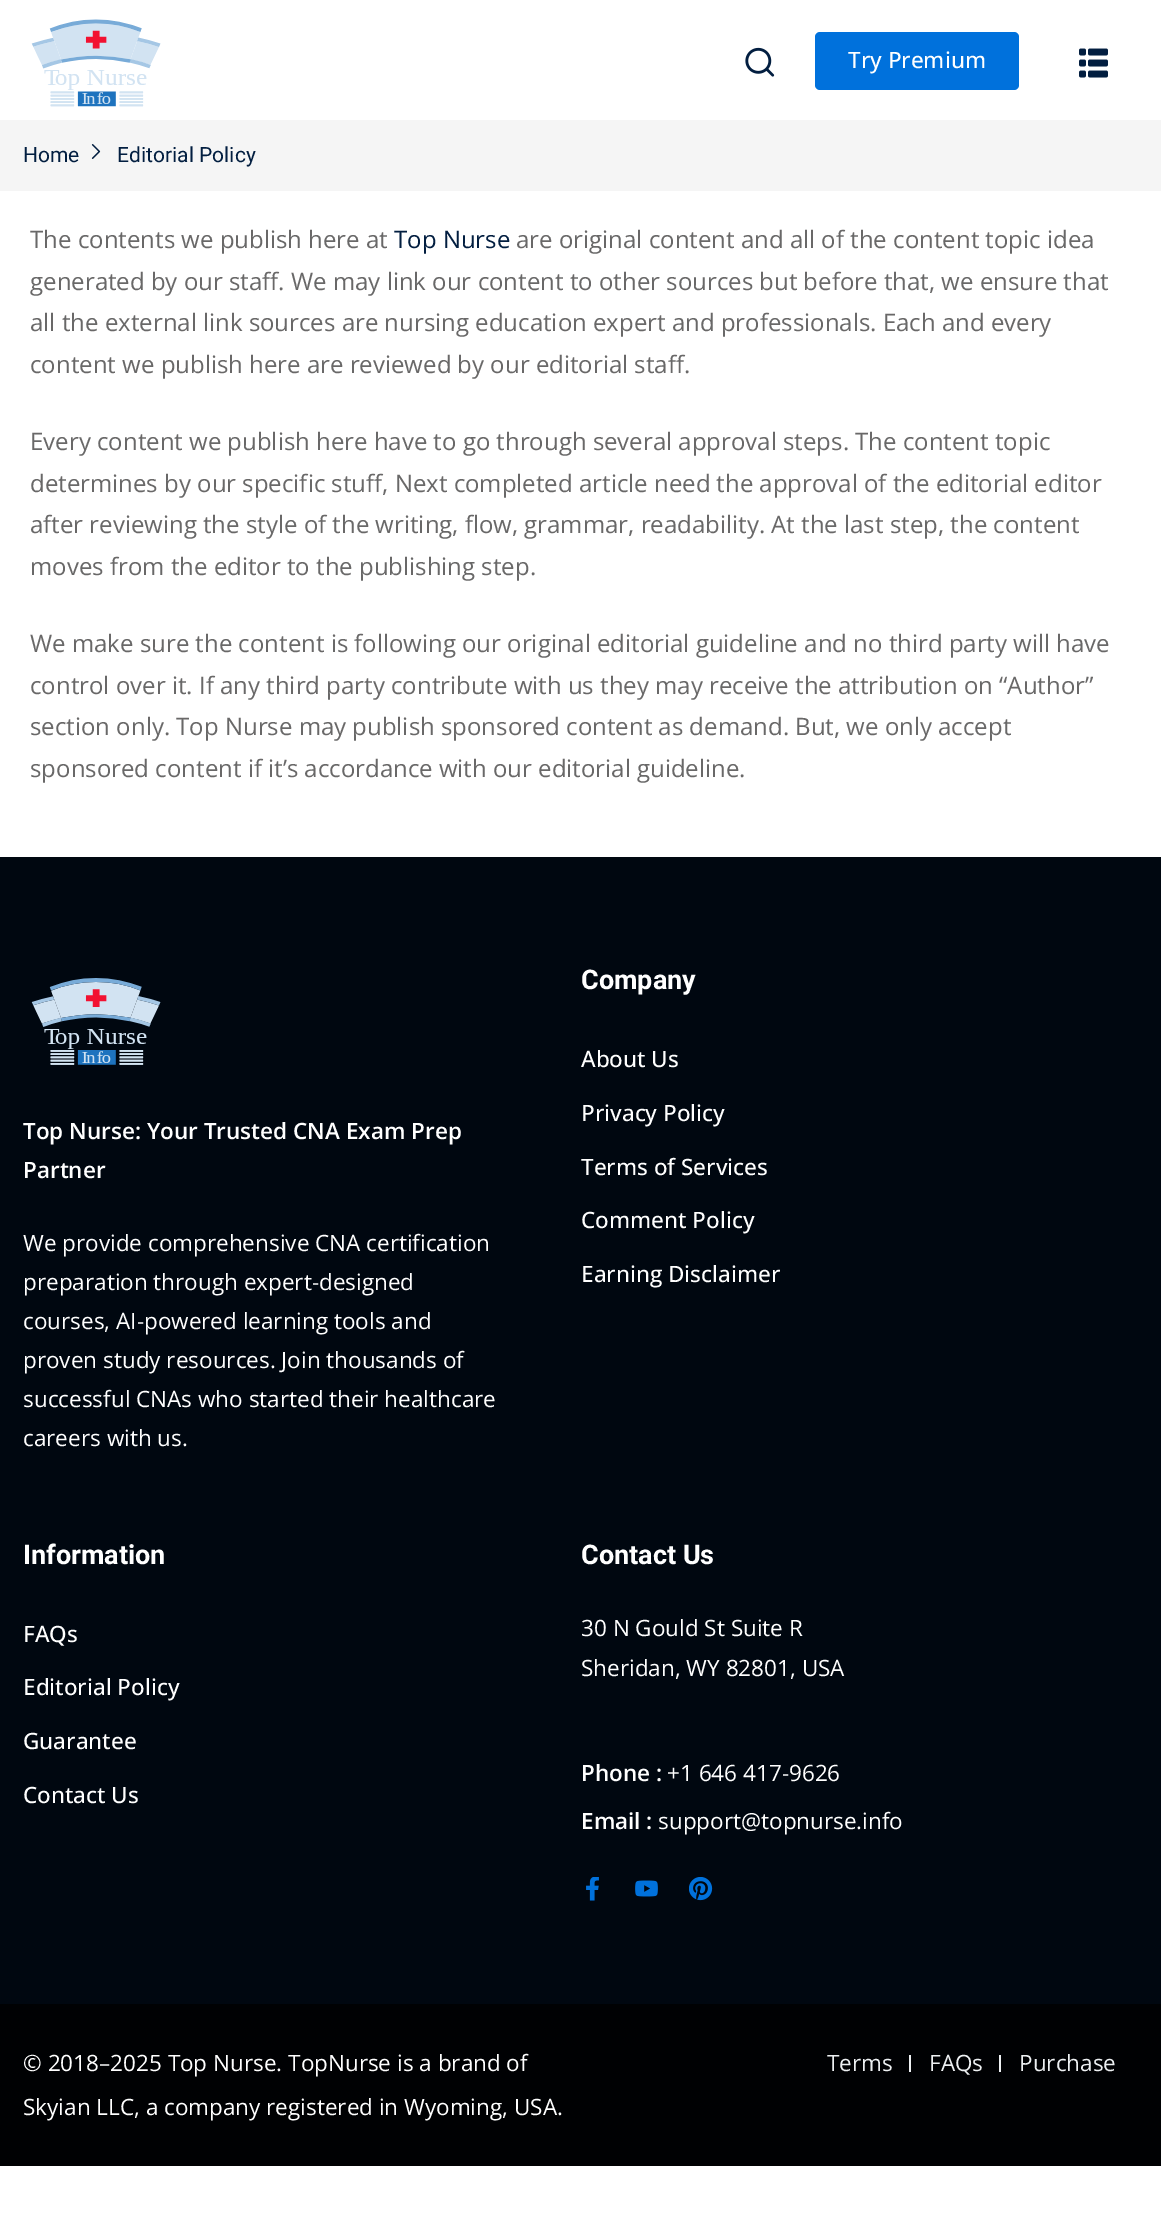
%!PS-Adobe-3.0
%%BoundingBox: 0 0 1161 2225
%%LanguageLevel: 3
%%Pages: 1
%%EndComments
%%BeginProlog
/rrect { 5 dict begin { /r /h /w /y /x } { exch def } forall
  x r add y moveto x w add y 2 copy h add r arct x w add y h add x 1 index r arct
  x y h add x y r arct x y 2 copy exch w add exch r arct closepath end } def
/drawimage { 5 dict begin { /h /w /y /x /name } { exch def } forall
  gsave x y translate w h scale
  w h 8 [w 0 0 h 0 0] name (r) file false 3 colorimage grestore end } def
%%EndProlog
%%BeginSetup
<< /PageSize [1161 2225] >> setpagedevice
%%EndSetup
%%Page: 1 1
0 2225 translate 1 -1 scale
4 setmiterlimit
1 setgray
0 0 1161 2225 rectfill
(images/1.raw) 31 19 130 88 drawimage
(images/2.raw) 745 47 30 30 drawimage
0 0.443 0.863 setrgbcolor
815 32 204 58 5 rrect fill
(images/3.raw) 1079 48 29 30 drawimage
0.961 setgray
0 120 1161 71 rectfill
(images/4.raw) 91 144 10 15 drawimage
0 0.027 0.063 setrgbcolor
0 857 1161 1147 rectfill
(images/5.raw) 31 978 130 87 drawimage
(images/6.raw) 586 1877 13 24 drawimage
(images/7.raw) 635 1880 23 17 drawimage
(images/8.raw) 689 1877 24 24 drawimage
0 0.004 0.012 setrgbcolor
0 2004 1161 162 rectfill
0.929 0.941 0.949 setrgbcolor
909 2055 2 17 rectfill
999 2055 2 17 rectfill
/OpenSans-Medium [22.5 0 0 -22.5 0 0] selectfont
1 setgray
848 68 moveto (Try Premium) show
/Heebo-Regular [21 0 0 -21 0 0] selectfont
0.008 0.118 0.251 setrgbcolor
23 162 moveto (Home) show
117 162 moveto (Editorial Policy) show
/OpenSans-Regular [24 0 0 -24 0 0] selectfont
0.412 0.408 0.408 setrgbcolor
30 248 moveto (The contents we publish here at) show
0.008 0.118 0.251 setrgbcolor
394 248 moveto (Top Nurse) show
0.412 0.408 0.408 setrgbcolor
516 248 moveto (are original content and all of the content topic idea) show
30 290 moveto (generated by our staff. We may link our content to other sources but before that, we ensure that) show
30 331 moveto (all the external link sources are nursing education expert and professionals. Each and every) show
30 373 moveto (content we publish here are reviewed by our editorial staff.) show
30 450 moveto (Every content we publish here have to go through several approval steps. The content topic) show
30 492 moveto (determines by our specific stuff, Next completed article need the approval of the editorial editor) show
30 533 moveto (after reviewing the style of the writing, flow, grammar, readability. At the last step, the content) show
30 575 moveto (moves from the editor to the publishing step.) show
30 652 moveto (We make sure the content is following our original editorial guideline and no third party will have) show
30 694 moveto (control over it. If any third party contribute with us they may receive the attribution on “Author”) show
30 735 moveto (section only. Top Nurse may publish sponsored content as demand. But, we only accept) show
30 777 moveto (sponsored content if it’s accordance with our editorial guideline.) show
/OpenSans-SemiBold [22.5 0 0 -22.5 0 0] selectfont
1 setgray
23 1139 moveto (Top Nurse: Your Trusted CNA Exam Prep) show
23 1178 moveto (Partner) show
/OpenSans-Regular [22.5 0 0 -22.5 0 0] selectfont
23 1251 moveto (We provide comprehensive CNA certification) show
23 1290 moveto (preparation through expert-designed) show
23 1329 moveto (courses, AI-powered learning tools and) show
23 1368 moveto (proven study resources. Join thousands of) show
23 1407 moveto (successful CNAs who started their healthcare) show
23 1446 moveto (careers with us.) show
/Heebo-Bold [27 0 0 -27 0 0] selectfont
581 989 moveto (Company) show
/OpenSans-Medium [22.5 0 0 -22.5 0 0] selectfont
581 1067 moveto (About Us) show
581 1121 moveto (Privacy Policy) show
581 1175 moveto (Terms of Services) show
581 1228 moveto (Comment Policy) show
581 1282 moveto (Earning Disclaimer) show
/Heebo-Bold [27 0 0 -27 0 0] selectfont
23 1564 moveto (Information) show
/OpenSans-Medium [22.5 0 0 -22.5 0 0] selectfont
23 1642 moveto (FAQs) show
23 1695 moveto (Editorial Policy) show
23 1749 moveto (Guarantee) show
23 1803 moveto (Contact Us) show
/Heebo-Bold [27 0 0 -27 0 0] selectfont
581 1564 moveto (Contact Us) show
/OpenSans-Regular [22.5 0 0 -22.5 0 0] selectfont
581 1636 moveto (30 N Gould St Suite R) show
581 1676 moveto (Sheridan, WY 82801, USA) show
/OpenSans-SemiBold [22.5 0 0 -22.5 0 0] selectfont
581 1781 moveto (Phone :) show
/OpenSans-Regular [22.5 0 0 -22.5 0 0] selectfont
667 1781 moveto (+1 646 417-9626) show
/OpenSans-SemiBold [22.5 0 0 -22.5 0 0] selectfont
581 1829 moveto (Email :) show
/OpenSans-Regular [22.5 0 0 -22.5 0 0] selectfont
658 1829 moveto (support@topnurse.info) show
23 2071 moveto (© 2018–2025 Top Nurse. TopNurse is a brand of) show
23 2115 moveto (Skyian LLC, a company registered in Wyoming, USA.) show
0.929 0.941 0.949 setrgbcolor
827 2071 moveto (Terms) show
929 2071 moveto (FAQs) show
1019 2071 moveto (Purchase) show
showpage
%%EOF
